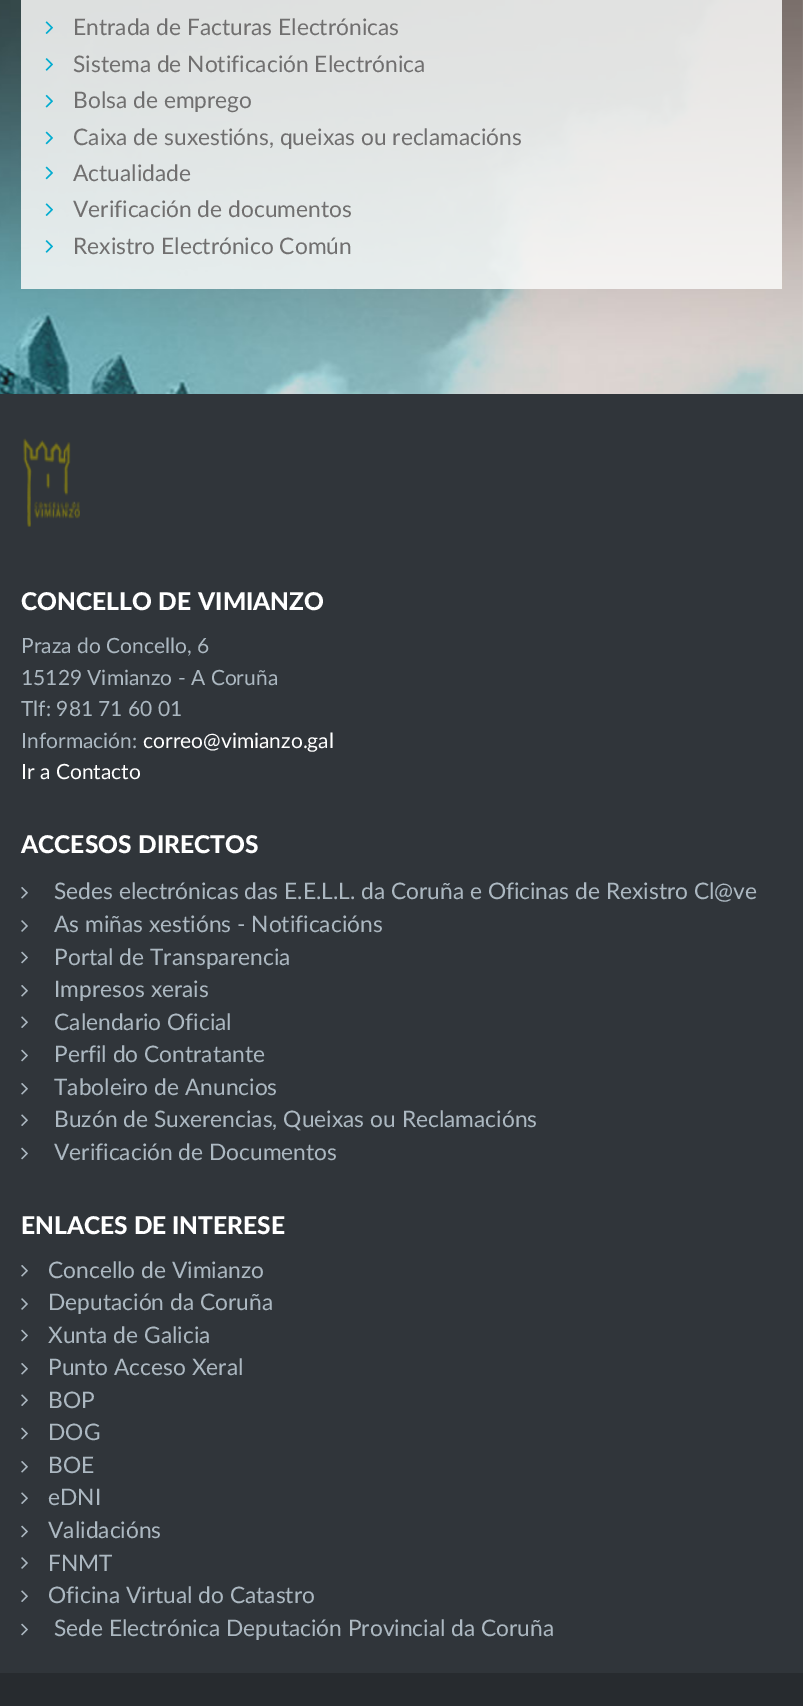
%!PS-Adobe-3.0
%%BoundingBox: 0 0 803 1706
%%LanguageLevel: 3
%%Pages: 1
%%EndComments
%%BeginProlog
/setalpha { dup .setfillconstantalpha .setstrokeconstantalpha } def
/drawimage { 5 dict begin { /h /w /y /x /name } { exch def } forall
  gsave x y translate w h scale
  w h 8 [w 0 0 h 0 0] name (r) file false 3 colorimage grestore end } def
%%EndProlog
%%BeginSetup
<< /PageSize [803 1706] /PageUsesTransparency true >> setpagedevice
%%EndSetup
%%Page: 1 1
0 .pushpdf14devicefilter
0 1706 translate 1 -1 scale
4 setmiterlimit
1 setgray
0 0 803 1706 rectfill
(images/1.raw) 0 0 803 394 drawimage
0.85 setalpha
0.98 0.98 0.976 setrgbcolor
21 0 761 289 rectfill
1 setalpha
(images/2.raw) 45 21 8 13 drawimage
(images/3.raw) 45 58 8 13 drawimage
(images/4.raw) 45 94 8 14 drawimage
(images/5.raw) 45 131 8 14 drawimage
(images/6.raw) 45 166 8 14 drawimage
(images/7.raw) 45 203 8 13 drawimage
(images/8.raw) 45 240 8 13 drawimage
0.153 0.169 0.184 setrgbcolor
0 1673 803 33 rectfill
0.188 0.208 0.227 setrgbcolor
0 394 803 1279 rectfill
(images/9.raw) 23 438 57 89 drawimage
(images/10.raw) 21 887 7 12 drawimage
(images/11.raw) 21 920 7 12 drawimage
(images/12.raw) 21 951 7 13 drawimage
(images/10.raw) 21 985 7 12 drawimage
(images/13.raw) 21 1016 7 12 drawimage
(images/12.raw) 21 1049 7 13 drawimage
(images/10.raw) 21 1083 7 12 drawimage
(images/13.raw) 21 1114 7 12 drawimage
(images/12.raw) 21 1147 7 13 drawimage
(images/10.raw) 21 1265 7 12 drawimage
(images/11.raw) 21 1298 7 12 drawimage
(images/12.raw) 21 1329 7 13 drawimage
(images/10.raw) 21 1363 7 12 drawimage
(images/13.raw) 21 1394 7 12 drawimage
(images/12.raw) 21 1427 7 13 drawimage
(images/10.raw) 21 1461 7 12 drawimage
(images/13.raw) 21 1492 7 12 drawimage
(images/12.raw) 21 1525 7 13 drawimage
(images/11.raw) 21 1557 7 12 drawimage
(images/13.raw) 21 1590 7 12 drawimage
(images/12.raw) 21 1623 7 13 drawimage
/Lato-Regular [22.75 0 0 -22.75 0 0] selectfont
0.439 0.435 0.435 setrgbcolor
73 35 moveto (Entrada de Facturas Electrónicas) show
73 72 moveto (Sistema de Notificación Electrónica) show
73 108 moveto (Bolsa de emprego) show
73 145 moveto (Caixa de suxestións, queixas ou reclamacións) show
73 181 moveto (Actualidade) show
73 217 moveto (Verificación de documentos) show
73 254 moveto (Rexistro Electrónico Común) show
/Lato-Black [24.5 0 0 -24.5 0 0] selectfont
1 setgray
21 610 moveto 1 0 32 (CONCELLO DE VIMIANZO) widthshow
/Lato-Regular [21 0 0 -21 0 0] selectfont
0.675 0.722 0.757 setrgbcolor
21 653 moveto (Praza do Concello, 6) show
21 685 moveto (15129 Vimianzo - A Coruña) show
21 716 moveto (Tlf: 981 71 60 01) show
21 748 moveto (Información:) show
1 setgray
143 748 moveto (correo@vimianzo.gal) show
21 779 moveto (Ir a Contacto) show
/Lato-Black [24.5 0 0 -24.5 0 0] selectfont
21 853 moveto 1 0 32 (ACCESOS DIRECTOS) widthshow
/Lato-Regular [22.75 0 0 -22.75 0 0] selectfont
0.675 0.722 0.757 setrgbcolor
54 899 moveto (Sedes electrónicas das E.E.L.L. da Coruña e Oficinas de Rexistro Cl@ve) show
54 932 moveto (As miñas xestións - Notificacións) show
54 965 moveto (Portal de Transparencia) show
54 997 moveto (Impresos xerais) show
54 1030 moveto (Calendario Oficial) show
54 1062 moveto (Perfil do Contratante) show
54 1095 moveto (Taboleiro de Anuncios) show
54 1127 moveto (Buzón de Suxerencias, Queixas ou Reclamacións) show
54 1160 moveto (Verificación de Documentos) show
/Lato-Black [24.5 0 0 -24.5 0 0] selectfont
1 setgray
21 1234 moveto (ENLACES DE INTERESE) show
/Lato-Regular [22.75 0 0 -22.75 0 0] selectfont
0.675 0.722 0.757 setrgbcolor
48 1278 moveto (Concello de Vimianzo) show
48 1310 moveto (Deputación da Coruña) show
48 1343 moveto (Xunta de Galicia) show
48 1375 moveto (Punto Acceso Xeral) show
48 1408 moveto (BOP) show
48 1440 moveto (DOG) show
48 1473 moveto (BOE) show
48 1505 moveto (eDNI) show
48 1538 moveto (Validacións) show
48 1571 moveto (FNMT) show
48 1603 moveto (Oficina Virtual do Catastro) show
54 1636 moveto (Sede Electrónica Deputación Provincial da Coruña) show
.poppdf14devicefilter showpage
%%EOF
